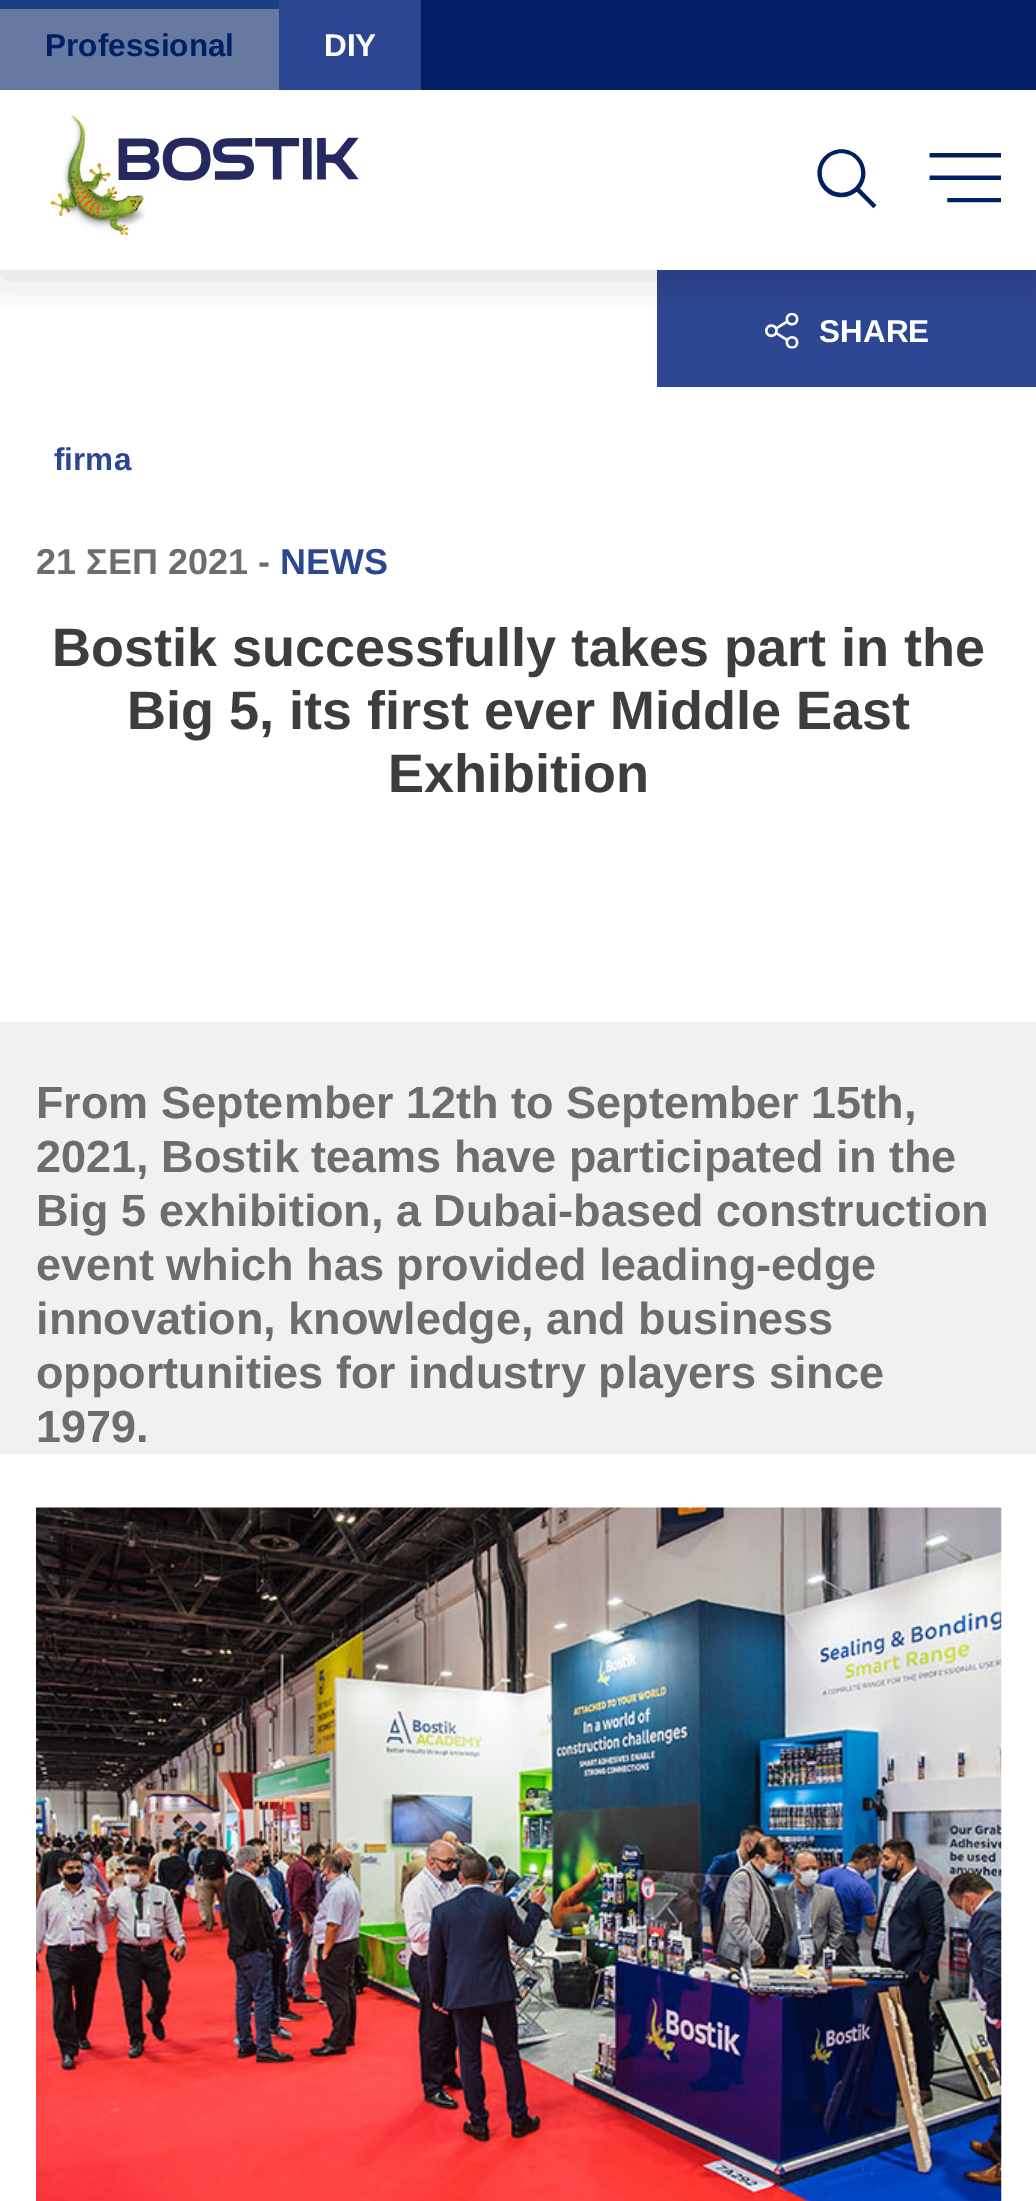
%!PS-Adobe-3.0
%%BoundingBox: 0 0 1036 2201
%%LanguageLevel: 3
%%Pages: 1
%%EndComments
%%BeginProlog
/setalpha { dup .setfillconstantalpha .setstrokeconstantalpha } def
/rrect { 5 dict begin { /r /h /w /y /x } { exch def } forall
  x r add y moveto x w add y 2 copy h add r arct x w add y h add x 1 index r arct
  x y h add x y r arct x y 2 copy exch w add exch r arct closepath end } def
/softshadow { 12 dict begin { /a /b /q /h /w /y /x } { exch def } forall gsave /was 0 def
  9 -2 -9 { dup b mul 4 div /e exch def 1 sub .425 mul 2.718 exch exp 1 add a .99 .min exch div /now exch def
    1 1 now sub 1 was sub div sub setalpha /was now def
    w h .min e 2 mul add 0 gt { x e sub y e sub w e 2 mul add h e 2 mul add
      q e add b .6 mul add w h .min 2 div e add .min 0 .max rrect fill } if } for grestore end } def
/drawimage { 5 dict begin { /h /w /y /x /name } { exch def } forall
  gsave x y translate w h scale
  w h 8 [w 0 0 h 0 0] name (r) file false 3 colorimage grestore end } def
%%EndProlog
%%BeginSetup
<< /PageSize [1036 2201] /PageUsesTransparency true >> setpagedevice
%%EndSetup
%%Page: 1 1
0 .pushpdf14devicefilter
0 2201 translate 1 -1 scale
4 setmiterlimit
1 setgray
0 0 1036 2201 rectfill
0.176 0.275 0.569 setrgbcolor
657 270 379 117 rectfill
(images/4.raw) 765 313 34 36 drawimage
gsave
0 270 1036 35 rectclip
0 setgray
0 95 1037 180 0 27 0.15 softshadow
grestore
(images/1.raw) 50 115 309 121 drawimage
0 0.125 0.388 setrgbcolor
421 0 615 90 rectfill
0.4 0.475 0.631 setrgbcolor
0 9 279 81 rectfill
0.094 0.255 0.522 setrgbcolor
0 0 279 9 rectfill
0.176 0.275 0.569 setrgbcolor
279 0 142 90 rectfill
(images/2.raw) 817 149 60 60 drawimage
(images/3.raw) 929 153 72 50 drawimage
0.945 setgray
0 1022 1036 432 rectfill
(images/5.raw) 36 1507 966 694 drawimage
/LiberationSans-Bold [31.5 0 0 -31.5 0 0] selectfont
0 0.125 0.388 setrgbcolor
45 56 moveto (Professional) show
1 setgray
324 56 moveto (DIY) show
819 342 moveto (SHARE) show
0.176 0.275 0.569 setrgbcolor
54 470 moveto (firma) show
/LiberationSans-Bold [36 0 0 -36 0 0] selectfont
0.427 setgray
36 574 moveto (21 ΣΕΠ 2021 -) show
0.176 0.275 0.569 setrgbcolor
280 574 moveto (NEWS) show
/LiberationSans-Bold [54 0 0 -54 0 0] selectfont
0.239 setgray
52 666 moveto (Bostik successfully takes part in the) show
127 729 moveto (Big 5, its first ever Middle East) show
388 792 moveto (Exhibition) show
/LiberationSans-Bold [45 0 0 -45 0 0] selectfont
0.427 setgray
36 1118 moveto (From September 12th to September 15th,) show
36 1172 moveto (2021, Bostik teams have participated in the) show
36 1226 moveto (Big 5 exhibition, a Dubai-based construction) show
36 1280 moveto (event which has provided leading-edge) show
36 1334 moveto (innovation, knowledge, and business) show
36 1388 moveto (opportunities for industry players since) show
36 1442 moveto (1979.) show
.poppdf14devicefilter showpage
%%EOF
